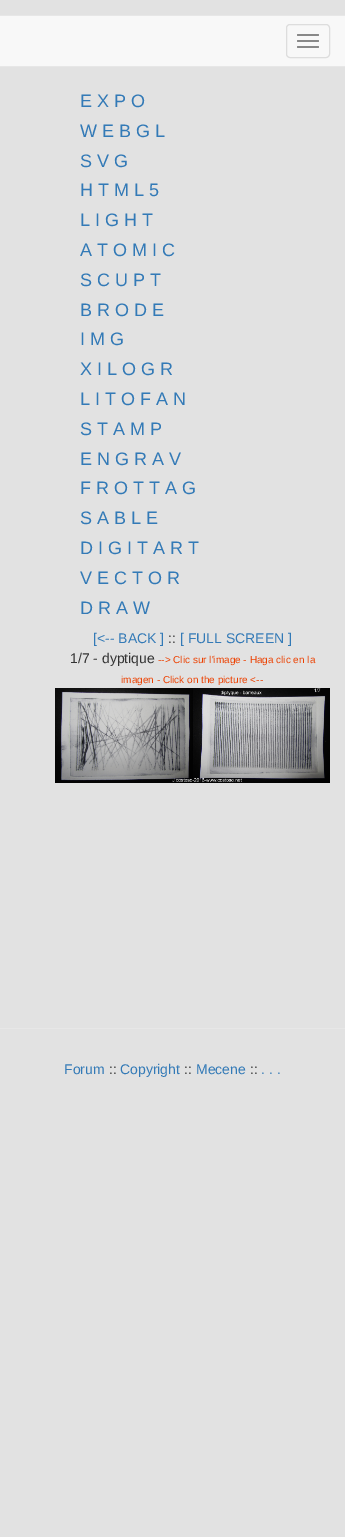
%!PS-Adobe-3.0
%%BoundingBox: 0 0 345 1537
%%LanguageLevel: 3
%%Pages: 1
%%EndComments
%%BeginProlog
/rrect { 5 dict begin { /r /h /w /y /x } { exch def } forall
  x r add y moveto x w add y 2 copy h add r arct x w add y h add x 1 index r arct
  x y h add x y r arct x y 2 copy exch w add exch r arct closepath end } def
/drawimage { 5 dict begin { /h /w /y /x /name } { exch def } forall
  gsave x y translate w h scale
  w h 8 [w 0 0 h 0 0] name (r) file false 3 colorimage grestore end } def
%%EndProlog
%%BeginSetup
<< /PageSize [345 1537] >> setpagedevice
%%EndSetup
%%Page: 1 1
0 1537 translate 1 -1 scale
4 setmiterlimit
0.886 setgray
0 0 345 1537 rectfill
0.973 setgray
0 16 345 50 rectfill
0.906 setgray
0 15 345 1 rectfill
0 66 345 1 rectfill
0.867 setgray
286.5 24.5 43 33 3.5 rrect stroke
0.533 setgray
297 34 22 2 1 rrect fill
297 40 22 2 1 rrect fill
297 46 22 2 1 rrect fill
(images/1.raw) 55 688 275 95 drawimage
0.906 setgray
0 1028 345 1 rectfill
/LiberationSans-Regular [18 0 0 -18 0 0] selectfont
0.2 0.478 0.718 setrgbcolor
80 107 moveto (E X P O) show
80 137 moveto (W E B G L) show
80 167 moveto (S V G) show
80 196 moveto (H T M L 5) show
80 226 moveto (L I G H T) show
80 256 moveto (A T O M I C) show
80 286 moveto (S C U P T) show
80 316 moveto (B R O D E) show
80 345 moveto (I M G) show
80 375 moveto (X I L O G R) show
80 405 moveto (L I T O F A N) show
80 435 moveto (S T A M P) show
80 465 moveto (E N G R A V) show
80 494 moveto (F R O T T A G) show
80 524 moveto (S A B L E) show
80 554 moveto (D I G I T A R T) show
80 584 moveto (V E C T O R) show
80 614 moveto (D R A W) show
/LiberationSans-Regular [14 0 0 -14 0 0] selectfont
93 643 moveto ([<-- BACK ]) show
0.2 setgray
168 643 moveto (::) show
0.2 0.478 0.718 setrgbcolor
180 643 moveto ([ FULL SCREEN ]) show
0.2 setgray
70 663 moveto (1/7 - dyptique) show
/LiberationSans-Regular [10 0 0 -10 0 0] selectfont
0.929 0.251 0 setrgbcolor
158 663 moveto (--> Clic sur l'image - Haga clic en la) show
121 683 moveto (imagen - Click on the picture <--) show
/LiberationSans-Regular [14 0 0 -14 0 0] selectfont
0.2 0.478 0.718 setrgbcolor
64 1074 moveto (Forum) show
0.2 setgray
109 1074 moveto (::) show
0.2 0.478 0.718 setrgbcolor
120 1074 moveto (Copyright) show
0.2 setgray
184 1074 moveto (::) show
0.2 0.478 0.718 setrgbcolor
196 1074 moveto (Mecene) show
0.2 setgray
250 1074 moveto (::) show
0.2 0.478 0.718 setrgbcolor
261 1074 moveto (. . .) show
showpage
%%EOF
